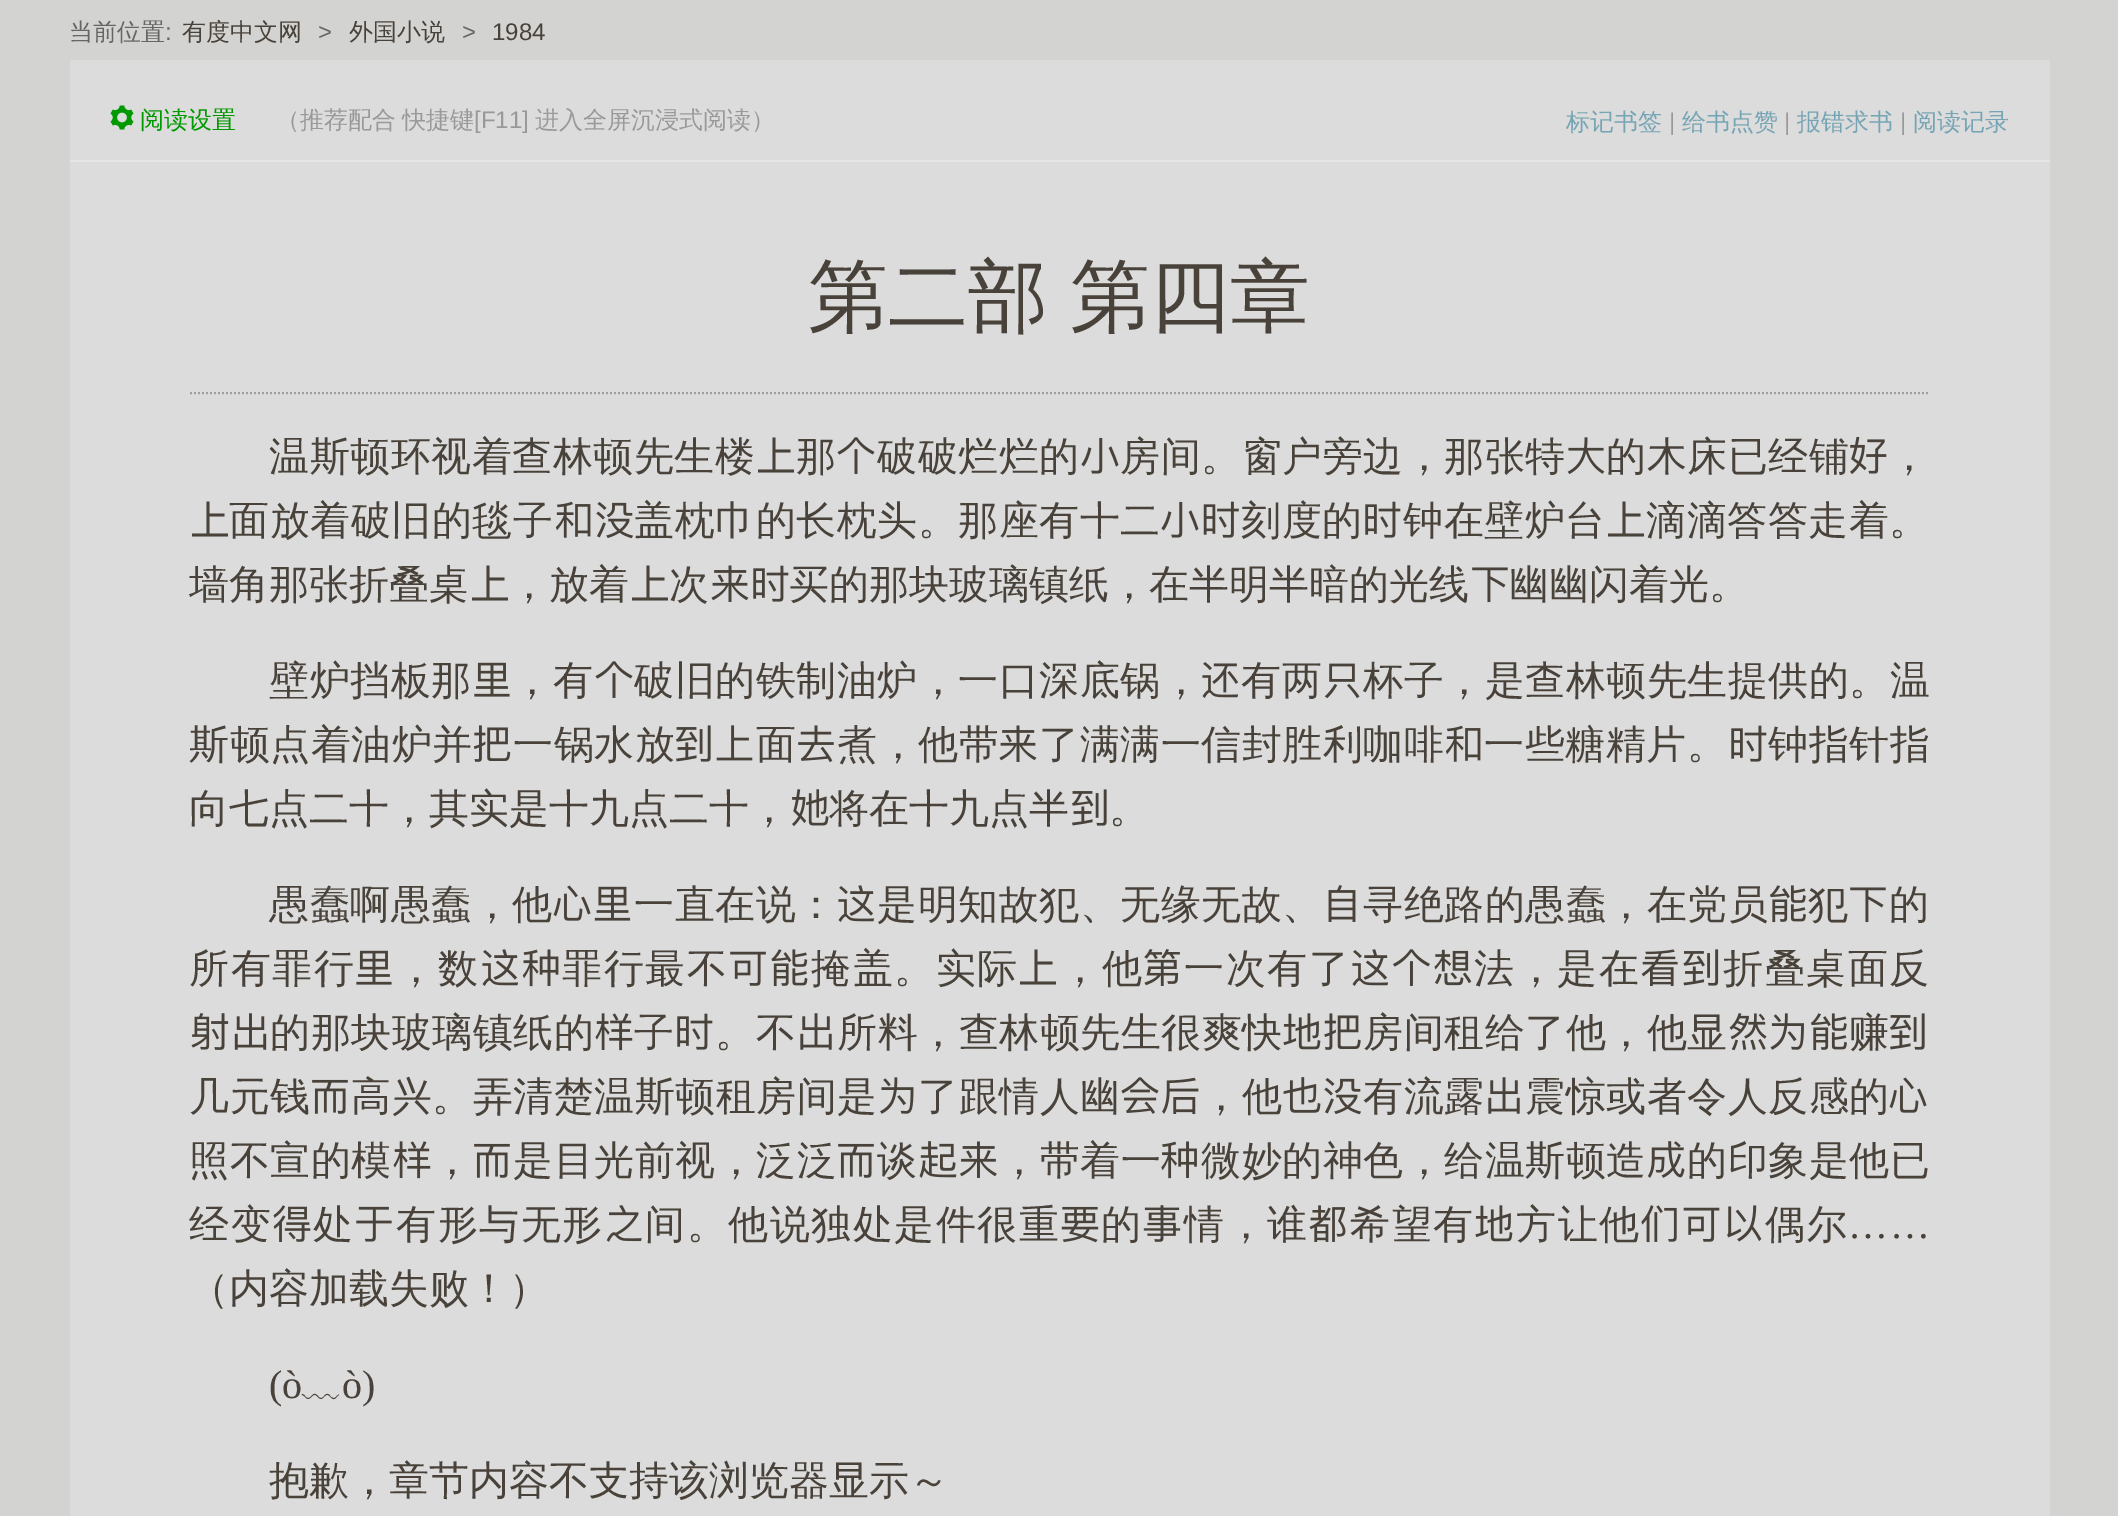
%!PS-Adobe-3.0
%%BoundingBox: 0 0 2118 1516
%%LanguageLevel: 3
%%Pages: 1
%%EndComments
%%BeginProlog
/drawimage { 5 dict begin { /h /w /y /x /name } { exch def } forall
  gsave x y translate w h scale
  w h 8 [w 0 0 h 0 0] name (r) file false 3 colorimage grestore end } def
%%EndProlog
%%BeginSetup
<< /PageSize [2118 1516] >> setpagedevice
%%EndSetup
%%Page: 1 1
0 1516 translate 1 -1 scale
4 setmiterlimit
0.827 0.827 0.82 setrgbcolor
0 0 2118 1516 rectfill
0.863 setgray
70 60 1980 1456 rectfill
0.902 setgray
70 160 1980 2 rectfill
(images/1.raw) 110 105 24 25 drawimage
0.62 setgray
2 setlinewidth
[2 2] 0 setdash
newpath 190 393 moveto 1930 393 lineto stroke
0.286 0.259 0.227 setrgbcolor
newpath 772.5 437.5 moveto 775.5 437.5 lineto 775.5 449.5 lineto 790.5 449.5 lineto 790.5 452.5 lineto 775.5 452.5 lineto 775.5 469.5 lineto 794 469.5 lineto 794 472.5 lineto 758 472.5 lineto 758 469.5 lineto 772.5 469.5 lineto closepath fill
(images/2.raw) 837 437 38 37 drawimage
(images/3.raw) 1081 437 38 37 drawimage
(images/4.raw) 1567 437 38 37 drawimage
(images/5.raw) 1850 436 37 38 drawimage
newpath 206.5 501.5 moveto 209.5 501.5 lineto 209.5 513.5 lineto 224.5 513.5 lineto 224.5 516.5 lineto 209.5 516.5 lineto 209.5 533.5 lineto 228 533.5 lineto 228 536.5 lineto 192 536.5 lineto 192 533.5 lineto 206.5 533.5 lineto closepath fill
(images/6.raw) 555 501 78 38 drawimage
(images/7.raw) 1161 501 78 37 drawimage
(images/8.raw) 1365 501 36 37 drawimage
newpath 1622.5 501.5 moveto 1625.5 501.5 lineto 1625.5 513.5 lineto 1640.5 513.5 lineto 1640.5 516.5 lineto 1625.5 516.5 lineto 1625.5 533.5 lineto 1644 533.5 lineto 1644 536.5 lineto 1608 536.5 lineto 1608 533.5 lineto 1622.5 533.5 lineto closepath fill
newpath 486.5 565.5 moveto 489.5 565.5 lineto 489.5 577.5 lineto 504.5 577.5 lineto 504.5 580.5 lineto 489.5 580.5 lineto 489.5 597.5 lineto 508 597.5 lineto 508 600.5 lineto 472 600.5 lineto 472 597.5 lineto 486.5 597.5 lineto closepath fill
newpath 646.5 565.5 moveto 649.5 565.5 lineto 649.5 577.5 lineto 664.5 577.5 lineto 664.5 580.5 lineto 649.5 580.5 lineto 649.5 597.5 lineto 668 597.5 lineto 668 600.5 lineto 632 600.5 lineto 632 597.5 lineto 646.5 597.5 lineto closepath fill
(images/9.raw) 711 565 78 37 drawimage
(images/10.raw) 1472 567 36 36 drawimage
(images/11.raw) 474 662 36 35 drawimage
(images/2.raw) 595 661 38 37 drawimage
(images/12.raw) 1202 662 37 36 drawimage
(images/13.raw) 1324 663 36 36 drawimage
(images/14.raw) 473 725 38 37 drawimage
(images/15.raw) 676 725 77 37 drawimage
(images/16.raw) 798 725 36 38 drawimage
(images/17.raw) 999 725 38 37 drawimage
(images/18.raw) 1445 725 36 37 drawimage
(images/8.raw) 1731 725 36 37 drawimage
(images/19.raw) 792 789 37 38 drawimage
(images/20.raw) 1072 789 35 37 drawimage
(images/21.raw) 553 885 78 36 drawimage
(images/22.raw) 838 885 37 37 drawimage
(images/23.raw) 1328 885 28 37 drawimage
(images/24.raw) 1770 885 36 38 drawimage
(images/10.raw) 1850 887 36 36 drawimage
(images/11.raw) 356 950 36 35 drawimage
(images/25.raw) 482 949 77 38 drawimage
(images/26.raw) 730 949 78 38 drawimage
newpath 1034.5 949.5 moveto 1037.5 949.5 lineto 1037.5 961.5 lineto 1052.5 961.5 lineto 1052.5 964.5 lineto 1037.5 964.5 lineto 1037.5 981.5 lineto 1056 981.5 lineto 1056 984.5 lineto 1020 984.5 lineto 1020 981.5 lineto 1034.5 981.5 lineto closepath fill
(images/27.raw) 1144 949 36 37 drawimage
(images/28.raw) 1352 949 120 37 drawimage
(images/29.raw) 1641 949 78 37 drawimage
(images/30.raw) 191 1013 76 37 drawimage
(images/31.raw) 595 1013 38 38 drawimage
(images/8.raw) 677 1013 36 37 drawimage
(images/32.raw) 800 1013 32 37 drawimage
(images/33.raw) 1283 1013 78 37 drawimage
(images/34.raw) 1729 1013 118 38 drawimage
(images/20.raw) 1890 1013 35 37 drawimage
(images/35.raw) 312 1079 36 35 drawimage
(images/36.raw) 880 1077 34 37 drawimage
(images/37.raw) 1121 1077 78 37 drawimage
(images/38.raw) 1283 1077 78 38 drawimage
(images/32.raw) 1488 1077 32 37 drawimage
(images/39.raw) 1889 1077 38 36 drawimage
(images/31.raw) 393 1141 38 38 drawimage
(images/35.raw) 474 1143 36 35 drawimage
(images/35.raw) 838 1143 36 35 drawimage
(images/40.raw) 919 1141 78 37 drawimage
(images/41.raw) 1161 1141 36 38 drawimage
(images/42.raw) 1647 1141 38 37 drawimage
(images/43.raw) 273 1205 38 37 drawimage
(images/44.raw) 356 1206 36 36 drawimage
(images/45.raw) 606 1205 36 37 drawimage
(images/46.raw) 1061 1206 38 37 drawimage
(images/47.raw) 1143 1205 38 37 drawimage
(images/48.raw) 1309 1205 37 37 drawimage
(images/49.raw) 1475 1205 38 37 drawimage
(images/50.raw) 1641 1205 121 38 drawimage
/WenQuanYiZenHei-Medium [24 0 0 -24 0 0] selectfont
0.4 setgray
69 40 moveto (当前位置) show
/LiberationSans-Regular [24 0 0 -24 0 0] selectfont
165 40 moveto (:) show
/WenQuanYiZenHei-Medium [24 0 0 -24 0 0] selectfont
0.286 0.259 0.227 setrgbcolor
182 40 moveto (有度中文网) show
/LiberationSans-Regular [24 0 0 -24 0 0] selectfont
0.4 setgray
318 40 moveto (>) show
/WenQuanYiZenHei-Medium [24 0 0 -24 0 0] selectfont
0.286 0.259 0.227 setrgbcolor
349 40 moveto (外国小说) show
/LiberationSans-Regular [24 0 0 -24 0 0] selectfont
0.4 setgray
462 40 moveto (>) show
0.286 0.259 0.227 setrgbcolor
492 40 moveto (1984) show
/WenQuanYiZenHei-Medium [24 0 0 -24 0 0] selectfont
0 0.6 0 setrgbcolor
140 128 moveto (阅读设置) show
0.6 setgray
276 128 moveto -1 0 32 (（推荐配合 快捷键) widthshow
/LiberationSans-Regular [24 0 0 -24 0 0] selectfont
474 128 moveto ([F11]) show
/WenQuanYiZenHei-Medium [24 0 0 -24 0 0] selectfont
535 128 moveto (进入全屏沉浸式阅读）) show
0.459 0.643 0.706 setrgbcolor
1566 130 moveto (标记书签) show
/LiberationSans-Regular [24 0 0 -24 0 0] selectfont
0.6 setgray
1669 130 moveto (|) show
/WenQuanYiZenHei-Medium [24 0 0 -24 0 0] selectfont
0.459 0.643 0.706 setrgbcolor
1682 130 moveto (给书点赞) show
/LiberationSans-Regular [24 0 0 -24 0 0] selectfont
0.6 setgray
1784 130 moveto (|) show
/WenQuanYiZenHei-Medium [24 0 0 -24 0 0] selectfont
0.459 0.643 0.706 setrgbcolor
1797 130 moveto (报错求书) show
/LiberationSans-Regular [24 0 0 -24 0 0] selectfont
0.6 setgray
1900 130 moveto (|) show
/WenQuanYiZenHei-Medium [24 0 0 -24 0 0] selectfont
0.459 0.643 0.706 setrgbcolor
1913 130 moveto (阅读记录) show
/WenQuanYiZenHei-Medium [80 0 0 -80 0 0] selectfont
0.286 0.259 0.227 setrgbcolor
808 324 moveto -2 0 32 (第二部 第四章) widthshow
/WenQuanYiZenHei-Medium [40 0 0 -40 0 0] selectfont
269 470 moveto 0.5 0 (温斯顿环视着查林顿先生楼) ashow
796 470 moveto 0.5 0 (那) ashow
877 470 moveto 0.5 0 (破破烂烂的) ashow
1120 470 moveto 0.5 0 (房间。窗户旁边，那张特) ashow
1606 470 moveto 0.5 0 (的木床已经铺) ashow
1889 470 moveto 0.5 0 (，) ashow
229 534 moveto 0.5 0 (面放着破旧的毯子) ashow
634 534 moveto 0.5 0 (盖枕巾的长枕头。那座有十二) ashow
1241 534 moveto 0.5 0 (刻度的) ashow
1403 534 moveto 0.5 0 (钟在壁炉台) ashow
1646 534 moveto 0.5 0 (滴滴答答走着。) ashow
189 598 moveto (墙角那张折叠桌) show
509 598 moveto (，放着) show
669 598 moveto (次) show
789 598 moveto (买的那块玻璃镇纸，在半明半暗的光线) show
1509 598 moveto (幽幽闪着光。) show
269 694 moveto 0.5 0 (壁炉挡板那) ashow
512 694 moveto 0.5 0 (，有) ashow
634 694 moveto 0.5 0 (破旧的铁制油炉，一口深底锅，) ashow
1241 694 moveto 0.5 0 (有两) ashow
1363 694 moveto 0.5 0 (杯子，是查林顿先生提供的。温) ashow
189 758 moveto 0.5 0 (斯顿点着油炉并) ashow
513 758 moveto 0.5 0 (一锅水放) ashow
756 758 moveto 0.5 0 (面) ashow
837 758 moveto 0.5 0 (煮，他带) ashow
1039 758 moveto 0.5 0 (了满满一信封胜利咖啡) ashow
1484 758 moveto 0.5 0 (一些糖精片。) ashow
1768 758 moveto 0.5 0 (钟指针指) ashow
189 822 moveto (向七点二十，其实是十九点二十，) show
829 822 moveto (将在十九点半) show
1109 822 moveto (。) show
269 918 moveto 0.5 0 (愚蠢啊愚蠢，他) ashow
634 918 moveto 0.5 0 (一直在说：) ashow
877 918 moveto 0.5 0 (是明知故犯、无缘无故、) ashow
1363 918 moveto 0.5 0 (寻绝路的愚蠢，在党员) ashow
1808 918 moveto 0.5 0 (犯) ashow
1889 918 moveto 0.5 0 (的) ashow
189 982 moveto 1.5 0 (所有罪行) ashow
396 982 moveto 1.5 0 (，数) ashow
562 982 moveto 1.5 0 (罪行最不) ashow
811 982 moveto 1.5 0 (掩盖。实际) ashow
1060 982 moveto 1.5 0 (，他) ashow
1184 982 moveto 1.5 0 (一次有了) ashow
1474 982 moveto 1.5 0 (法，是在) ashow
1723 982 moveto 1.5 0 (折叠桌面反) ashow
270 1046 moveto 0.5 0 (的那块玻璃镇纸的) ashow
634 1046 moveto 0.5 0 (子) ashow
715 1046 moveto 0.5 0 (。不) ashow
837 1046 moveto 0.5 0 (所料，查林顿先生很爽快) ashow
1363 1046 moveto 0.5 0 (房间租给了他，他显) ashow
1849 1046 moveto 0.5 0 (赚) ashow
189 1110 moveto 0.5 0 (几元钱) ashow
351 1110 moveto 0.5 0 (高兴。弄清楚温斯顿租房间是) ashow
918 1110 moveto 0.5 0 (了跟情人幽) ashow
1201 1110 moveto 0.5 0 (，他) ashow
1363 1110 moveto 0.5 0 (有流露) ashow
1525 1110 moveto 0.5 0 (震惊或者令人反感的) ashow
189 1174 moveto 0.5 0 (照不宣的模) ashow
432 1174 moveto 0.5 0 (，) ashow
513 1174 moveto 0.5 0 (是目光前视，泛泛) ashow
877 1174 moveto 0.5 0 (谈) ashow
999 1174 moveto 0.5 0 (，带着一) ashow
1201 1174 moveto 0.5 0 (微妙的神色，给温斯顿造) ashow
1687 1174 moveto 0.5 0 (的印象是他已) ashow
189 1238 moveto 1.5 0 (经变) ashow
313 1238 moveto 1.5 0 (处) ashow
396 1238 moveto 1.5 0 (有形与无形) ashow
645 1238 moveto 1.5 0 (间。他说独处是件很重) ashow
1101 1238 moveto 1.5 0 (的) ashow
1184 1238 moveto 1.5 0 (情，谁) ashow
1350 1238 moveto 1.5 0 (希望有) ashow
1516 1238 moveto 1.5 0 (方让他) ashow
1765 1238 moveto 1.5 0 (偶尔) ashow
/LiberationSerif-Regular [40 0 0 -40 0 0] selectfont
1848 1238 moveto 1.5 0 (……) ashow
/WenQuanYiZenHei-Medium [40 0 0 -40 0 0] selectfont
189 1302 moveto (（内容加载失败！）) show
/LiberationSerif-Regular [40 0 0 -40 0 0] selectfont
269 1398 moveto (\(ò) show
/WenQuanYiZenHei-Medium [40 0 0 -40 0 0] selectfont
302 1398 moveto (﹏) show
/LiberationSerif-Regular [40 0 0 -40 0 0] selectfont
342 1398 moveto (ò\)) show
/WenQuanYiZenHei-Medium [40 0 0 -40 0 0] selectfont
269 1494 moveto (抱歉，章节内容不支持该浏览器显示～) show
showpage
%%EOF
